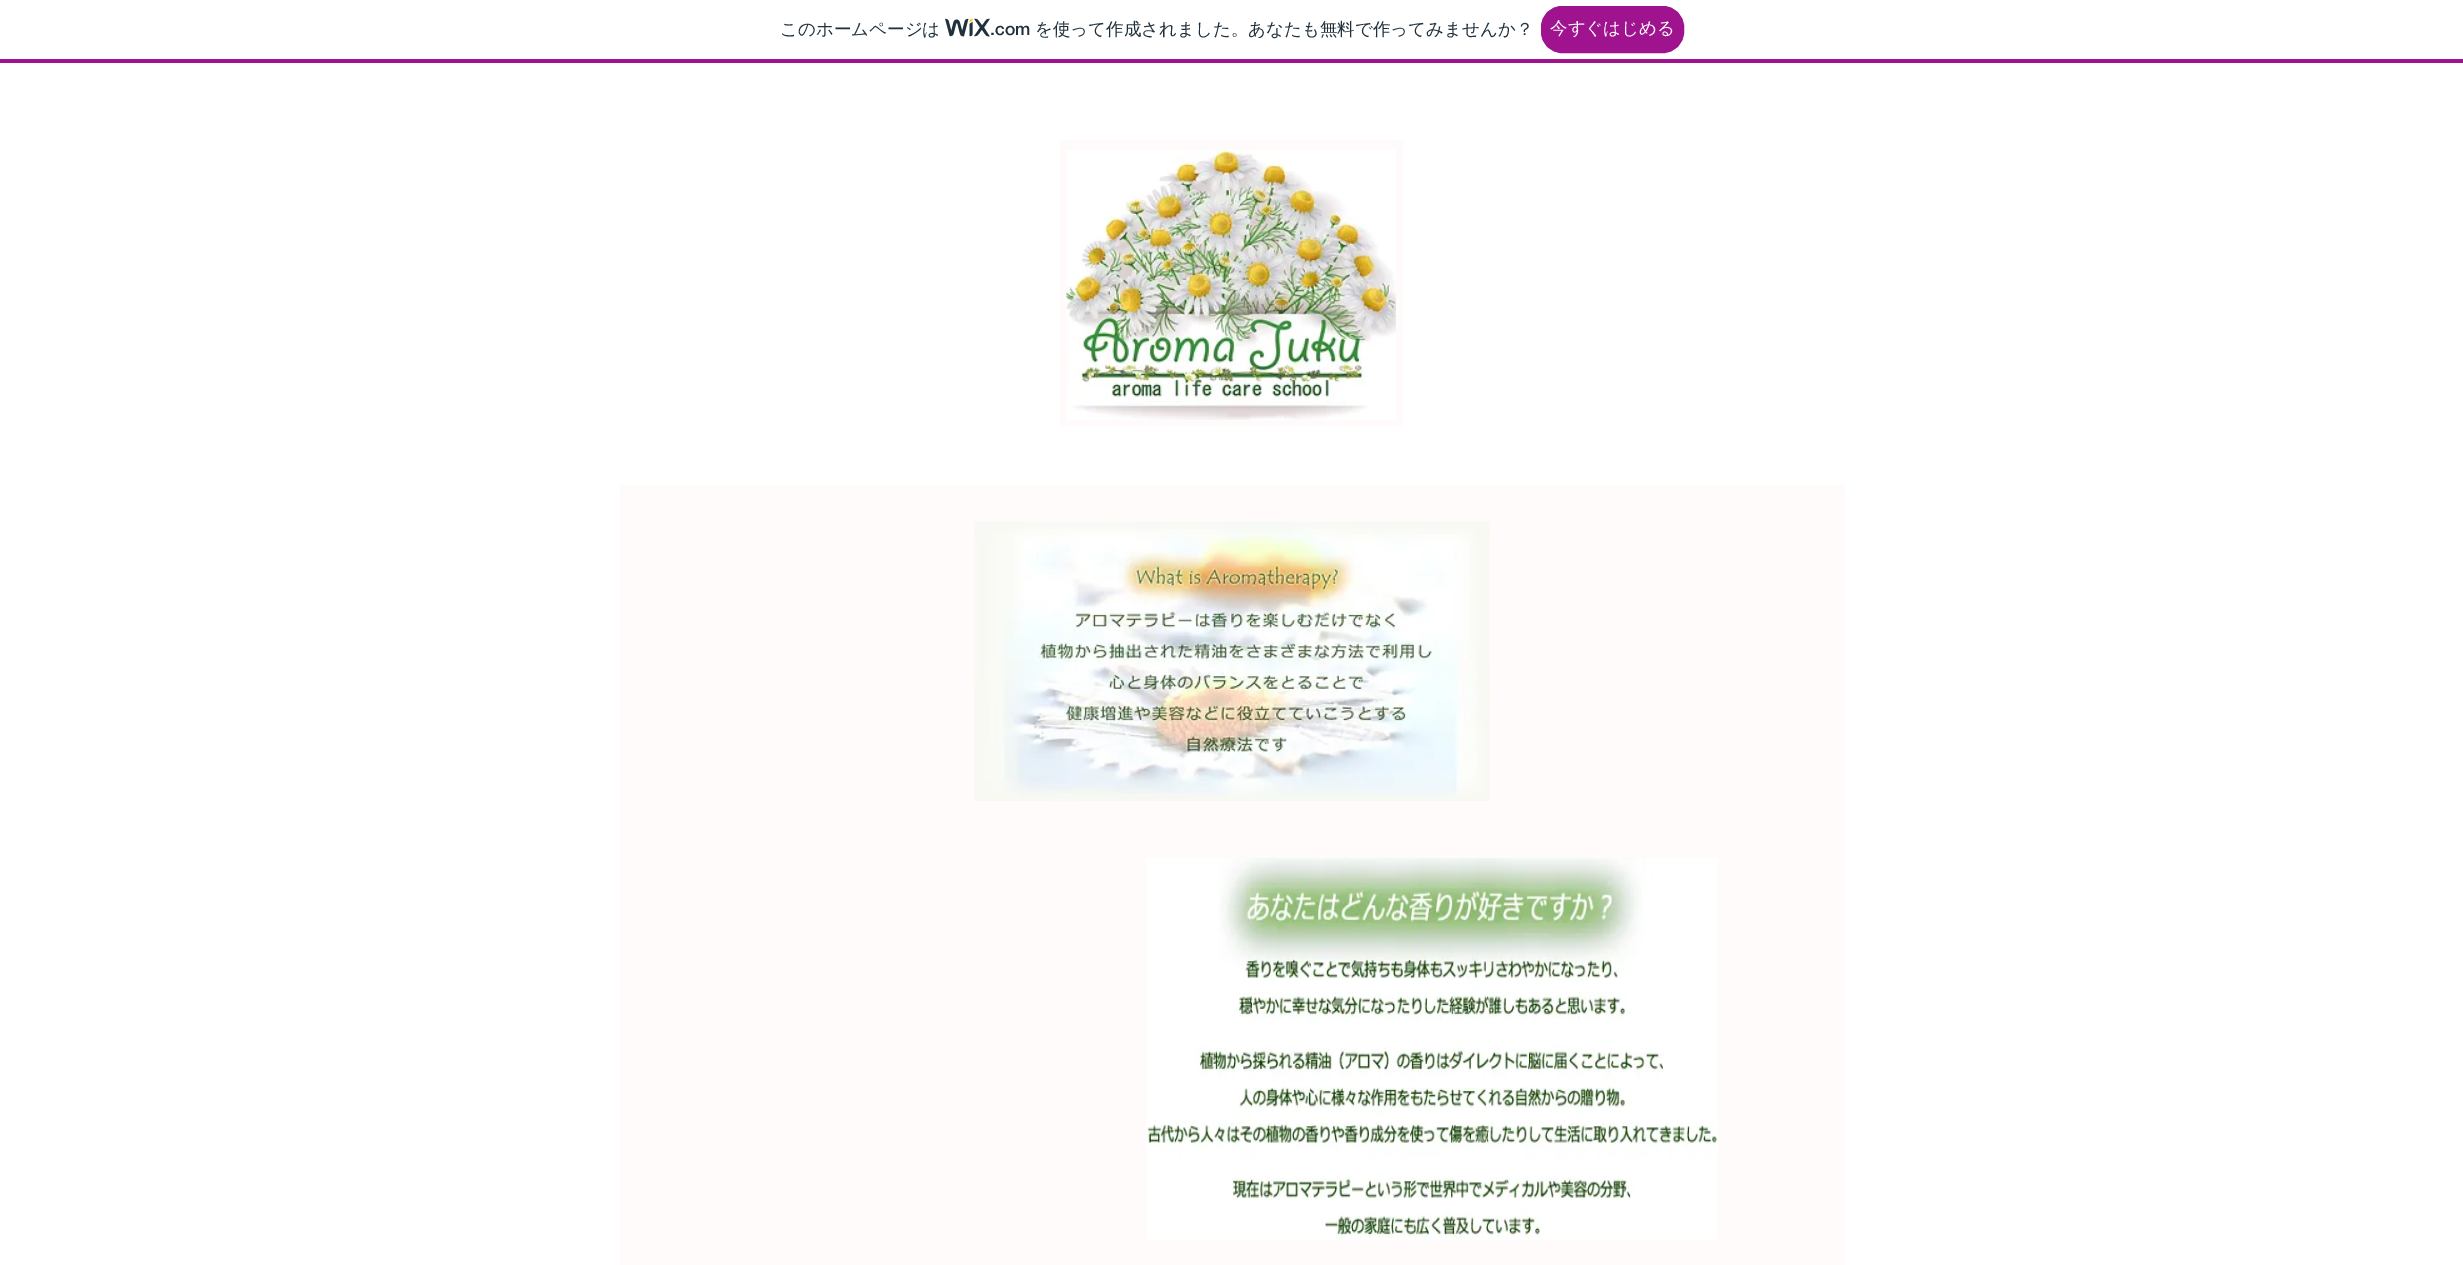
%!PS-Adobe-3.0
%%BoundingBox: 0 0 2463 1265
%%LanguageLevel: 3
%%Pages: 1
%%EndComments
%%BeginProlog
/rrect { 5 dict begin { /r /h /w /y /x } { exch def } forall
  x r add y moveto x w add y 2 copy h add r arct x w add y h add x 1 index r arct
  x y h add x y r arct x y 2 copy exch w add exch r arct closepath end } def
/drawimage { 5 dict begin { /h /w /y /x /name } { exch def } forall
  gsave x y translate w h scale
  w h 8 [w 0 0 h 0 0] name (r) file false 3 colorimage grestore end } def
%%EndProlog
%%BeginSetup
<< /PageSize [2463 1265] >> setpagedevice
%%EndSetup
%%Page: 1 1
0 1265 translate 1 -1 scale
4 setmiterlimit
1 setgray
0 0 2463 1265 rectfill
0.627 0.075 0.557 setrgbcolor
0 59 2463 4 rectfill
(images/1.raw) 945 18 45 19 drawimage
1541.5 6.5 142 46 20.5 rrect gsave fill grestore
stroke
1 0.984 0.984 setrgbcolor
1060 140 343 286 rectfill
(images/2.raw) 1066 150 330 270 drawimage
620 485 1225 780 rectfill
(images/3.raw) 974 521 516 280 drawimage
(images/4.raw) 1146 858 572 382 drawimage
/WenQuanYiZenHei-Medium [17.5 0 0 -17.5 0 0] selectfont
0.125 0.188 0.235 setrgbcolor
780 35 moveto (このホームページは) show
/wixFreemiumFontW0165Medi-Medium [17.5 0 0 -17.5 0 0] selectfont
990 35 moveto (.com) show
/WenQuanYiZenHei-Medium [17.5 0 0 -17.5 0 0] selectfont
1035 35 moveto (を使って作成されました。あなたも無料で作ってみませんか？) show
1 setgray
1550 34 moveto (今すぐはじめる) show
showpage
%%EOF
